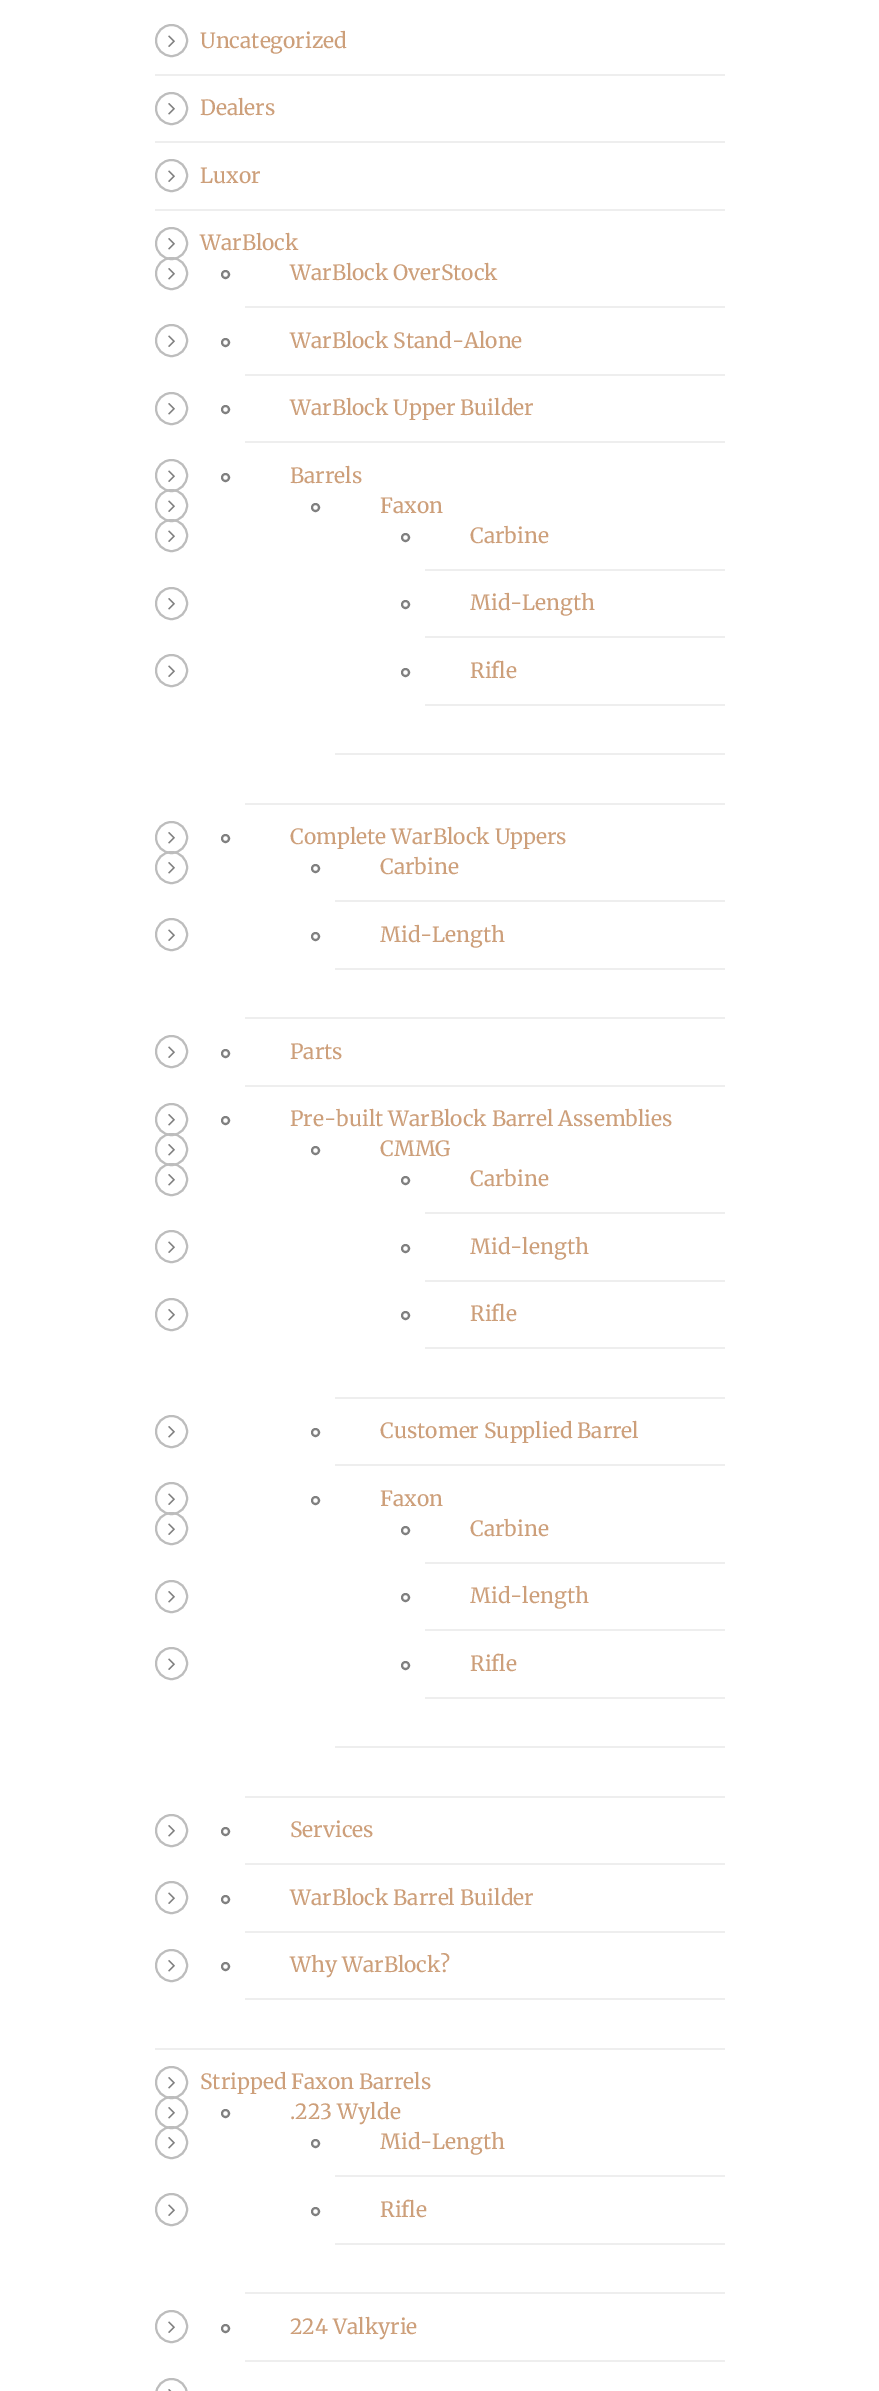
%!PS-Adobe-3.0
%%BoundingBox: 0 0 879 2391
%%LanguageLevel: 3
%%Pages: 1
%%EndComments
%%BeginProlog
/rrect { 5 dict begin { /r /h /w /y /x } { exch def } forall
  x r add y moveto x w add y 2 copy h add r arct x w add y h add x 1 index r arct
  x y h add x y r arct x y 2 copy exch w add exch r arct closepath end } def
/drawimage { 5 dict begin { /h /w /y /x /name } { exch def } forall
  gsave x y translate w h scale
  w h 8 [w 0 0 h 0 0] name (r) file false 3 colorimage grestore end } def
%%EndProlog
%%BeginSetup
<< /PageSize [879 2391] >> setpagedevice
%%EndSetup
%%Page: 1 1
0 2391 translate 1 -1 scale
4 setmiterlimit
1 setgray
0 0 879 2391 rectfill
0.933 setgray
155 74 570 2 rectfill
0.741 setgray
2 setlinewidth
newpath 171.5 40.5 15.5 0 360 arc closepath stroke
(images/1.raw) 168 35 7 12 drawimage
0.933 setgray
155 141 570 2 rectfill
0.741 setgray
newpath 171.5 108.5 15.5 0 360 arc closepath stroke
(images/2.raw) 168 103 7 12 drawimage
0.933 setgray
155 209 570 2 rectfill
0.741 setgray
newpath 171.5 175.5 15.5 0 360 arc closepath stroke
(images/1.raw) 168 170 7 12 drawimage
0.933 setgray
155 2048 570 2 rectfill
0.741 setgray
newpath 171.5 243.5 15.5 0 360 arc closepath stroke
(images/2.raw) 168 238 7 12 drawimage
0.933 setgray
245 306 480 2 rectfill
0.741 setgray
newpath 171.5 273.5 15.5 0 360 arc closepath stroke
(images/2.raw) 168 268 7 12 drawimage
0.502 setgray
newpath 225.5 274.5 3.5 0 360 arc closepath stroke
0.933 setgray
245 374 480 2 rectfill
0.741 setgray
newpath 171.5 340.5 15.5 0 360 arc closepath stroke
(images/1.raw) 168 335 7 12 drawimage
0.502 setgray
newpath 225.5 342.5 3.5 0 360 arc closepath stroke
0.933 setgray
245 441 480 2 rectfill
0.741 setgray
newpath 171.5 408.5 15.5 0 360 arc closepath stroke
(images/2.raw) 168 403 7 12 drawimage
0.502 setgray
newpath 225.5 409.5 3.5 0 360 arc closepath stroke
0.933 setgray
245 803 480 2 rectfill
0.741 setgray
newpath 171.5 475.5 15.5 0 360 arc closepath stroke
(images/1.raw) 168 470 7 12 drawimage
0.502 setgray
newpath 225.5 477.5 3.5 0 360 arc closepath stroke
0.933 setgray
335 753 390 2 rectfill
0.741 setgray
newpath 171.5 505.5 15.5 0 360 arc closepath stroke
(images/1.raw) 168 500 7 12 drawimage
0.502 setgray
newpath 315.5 507.5 3.5 0 360 arc closepath stroke
0.933 setgray
425 569 300 2 rectfill
0.741 setgray
newpath 171.5 535.5 15.5 0 360 arc closepath stroke
(images/1.raw) 168 530 7 12 drawimage
0.502 setgray
newpath 405.5 537.5 3.5 0 360 arc closepath stroke
0.933 setgray
425 636 300 2 rectfill
0.741 setgray
newpath 171.5 603.5 15.5 0 360 arc closepath stroke
(images/2.raw) 168 598 7 12 drawimage
0.502 setgray
newpath 405.5 604.5 3.5 0 360 arc closepath stroke
0.933 setgray
425 704 300 2 rectfill
0.741 setgray
newpath 171.5 670.5 15.5 0 360 arc closepath stroke
(images/1.raw) 168 665 7 12 drawimage
0.502 setgray
newpath 405.5 672.5 3.5 0 360 arc closepath stroke
0.933 setgray
245 1017 480 2 rectfill
0.741 setgray
newpath 171.5 837.5 15.5 0 360 arc closepath stroke
(images/2.raw) 168 832 7 12 drawimage
0.502 setgray
newpath 225.5 838.5 3.5 0 360 arc closepath stroke
0.933 setgray
335 900 390 2 rectfill
0.741 setgray
newpath 171.5 867.5 15.5 0 360 arc closepath stroke
(images/2.raw) 168 862 7 12 drawimage
0.502 setgray
newpath 315.5 868.5 3.5 0 360 arc closepath stroke
0.933 setgray
335 968 390 2 rectfill
0.741 setgray
newpath 171.5 934.5 15.5 0 360 arc closepath stroke
(images/1.raw) 168 929 7 12 drawimage
0.502 setgray
newpath 315.5 936.5 3.5 0 360 arc closepath stroke
0.933 setgray
245 1085 480 2 rectfill
0.741 setgray
newpath 171.5 1051.5 15.5 0 360 arc closepath stroke
(images/1.raw) 168 1046 7 12 drawimage
0.502 setgray
newpath 225.5 1053.5 3.5 0 360 arc closepath stroke
0.933 setgray
245 1796 480 2 rectfill
0.741 setgray
newpath 171.5 1119.5 15.5 0 360 arc closepath stroke
(images/2.raw) 168 1114 7 12 drawimage
0.502 setgray
newpath 225.5 1120.5 3.5 0 360 arc closepath stroke
0.933 setgray
335 1397 390 2 rectfill
0.741 setgray
newpath 171.5 1149.5 15.5 0 360 arc closepath stroke
(images/2.raw) 168 1144 7 12 drawimage
0.502 setgray
newpath 315.5 1150.5 3.5 0 360 arc closepath stroke
0.933 setgray
425 1212 300 2 rectfill
0.741 setgray
newpath 171.5 1179.5 15.5 0 360 arc closepath stroke
(images/2.raw) 168 1174 7 12 drawimage
0.502 setgray
newpath 405.5 1180.5 3.5 0 360 arc closepath stroke
0.933 setgray
425 1280 300 2 rectfill
0.741 setgray
newpath 171.5 1246.5 15.5 0 360 arc closepath stroke
(images/1.raw) 168 1241 7 12 drawimage
0.502 setgray
newpath 405.5 1248.5 3.5 0 360 arc closepath stroke
0.933 setgray
425 1347 300 2 rectfill
0.741 setgray
newpath 171.5 1314.5 15.5 0 360 arc closepath stroke
(images/2.raw) 168 1309 7 12 drawimage
0.502 setgray
newpath 405.5 1315.5 3.5 0 360 arc closepath stroke
0.933 setgray
335 1464 390 2 rectfill
0.741 setgray
newpath 171.5 1431.5 15.5 0 360 arc closepath stroke
(images/2.raw) 168 1426 7 12 drawimage
0.502 setgray
newpath 315.5 1432.5 3.5 0 360 arc closepath stroke
0.933 setgray
335 1746 390 2 rectfill
0.741 setgray
newpath 171.5 1498.5 15.5 0 360 arc closepath stroke
(images/1.raw) 168 1493 7 12 drawimage
0.502 setgray
newpath 315.5 1500.5 3.5 0 360 arc closepath stroke
0.933 setgray
425 1562 300 2 rectfill
0.741 setgray
newpath 171.5 1528.5 15.5 0 360 arc closepath stroke
(images/1.raw) 168 1523 7 12 drawimage
0.502 setgray
newpath 405.5 1530.5 3.5 0 360 arc closepath stroke
0.933 setgray
425 1629 300 2 rectfill
0.741 setgray
newpath 171.5 1596.5 15.5 0 360 arc closepath stroke
(images/2.raw) 168 1591 7 12 drawimage
0.502 setgray
newpath 405.5 1597.5 3.5 0 360 arc closepath stroke
0.933 setgray
425 1697 300 2 rectfill
0.741 setgray
newpath 171.5 1663.5 15.5 0 360 arc closepath stroke
(images/1.raw) 168 1658 7 12 drawimage
0.502 setgray
newpath 405.5 1665.5 3.5 0 360 arc closepath stroke
0.933 setgray
245 1863 480 2 rectfill
0.741 setgray
newpath 171.5 1830.5 15.5 0 360 arc closepath stroke
(images/2.raw) 168 1825 7 12 drawimage
0.502 setgray
newpath 225.5 1831.5 3.5 0 360 arc closepath stroke
0.933 setgray
245 1931 480 2 rectfill
0.741 setgray
newpath 171.5 1897.5 15.5 0 360 arc closepath stroke
(images/1.raw) 168 1892 7 12 drawimage
0.502 setgray
newpath 225.5 1899.5 3.5 0 360 arc closepath stroke
0.933 setgray
245 1998 480 2 rectfill
0.741 setgray
newpath 171.5 1965.5 15.5 0 360 arc closepath stroke
(images/2.raw) 168 1960 7 12 drawimage
0.502 setgray
newpath 225.5 1966.5 3.5 0 360 arc closepath stroke
0.741 setgray
newpath 171.5 2082.5 15.5 0 360 arc closepath stroke
(images/2.raw) 168 2077 7 12 drawimage
0.933 setgray
245 2292 480 2 rectfill
0.741 setgray
newpath 171.5 2112.5 15.5 0 360 arc closepath stroke
(images/2.raw) 168 2107 7 12 drawimage
0.502 setgray
newpath 225.5 2113.5 3.5 0 360 arc closepath stroke
0.933 setgray
335 2175 390 2 rectfill
0.741 setgray
newpath 171.5 2142.5 15.5 0 360 arc closepath stroke
(images/2.raw) 168 2137 7 12 drawimage
0.502 setgray
newpath 315.5 2143.5 3.5 0 360 arc closepath stroke
0.933 setgray
335 2243 390 2 rectfill
0.741 setgray
newpath 171.5 2209.5 15.5 0 360 arc closepath stroke
(images/1.raw) 168 2204 7 12 drawimage
0.502 setgray
newpath 315.5 2211.5 3.5 0 360 arc closepath stroke
0.933 setgray
245 2360 480 2 rectfill
0.741 setgray
newpath 171.5 2326.5 15.5 0 360 arc closepath stroke
(images/1.raw) 168 2321 7 12 drawimage
0.502 setgray
newpath 225.5 2328.5 3.5 0 360 arc closepath stroke
0.741 setgray
156 2379 31 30 15.5 rrect stroke
(images/3.raw) 168 2389 4 2 drawimage
/Merriweather-Regular [21 0 0 -21 0 0] selectfont
0.804 0.624 0.478 setrgbcolor
200 48 moveto (Uncategorized) show
200 115 moveto (Dealers) show
200 183 moveto (Luxor) show
200 250 moveto (WarBlock) show
290 280 moveto (WarBlock OverStock) show
290 348 moveto (WarBlock Stand-Alone) show
290 415 moveto (WarBlock Upper Builder) show
290 483 moveto (Barrels) show
380 513 moveto (Faxon) show
470 543 moveto (Carbine) show
470 610 moveto (Mid-Length) show
470 678 moveto (Rifle) show
290 844 moveto (Complete WarBlock Uppers) show
380 874 moveto (Carbine) show
380 942 moveto (Mid-Length) show
290 1059 moveto (Parts) show
290 1126 moveto (Pre-built WarBlock Barrel Assemblies) show
380 1156 moveto (CMMG) show
470 1186 moveto (Carbine) show
470 1254 moveto (Mid-length) show
470 1321 moveto (Rifle) show
380 1438 moveto (Customer Supplied Barrel) show
380 1506 moveto (Faxon) show
470 1536 moveto (Carbine) show
470 1603 moveto (Mid-length) show
470 1671 moveto (Rifle) show
290 1837 moveto (Services) show
290 1905 moveto (WarBlock Barrel Builder) show
290 1972 moveto (Why WarBlock?) show
200 2089 moveto (Stripped Faxon Barrels) show
290 2119 moveto (.223 Wylde) show
380 2149 moveto (Mid-Length) show
380 2217 moveto (Rifle) show
290 2334 moveto (224 Valkyrie) show
showpage
%%EOF
